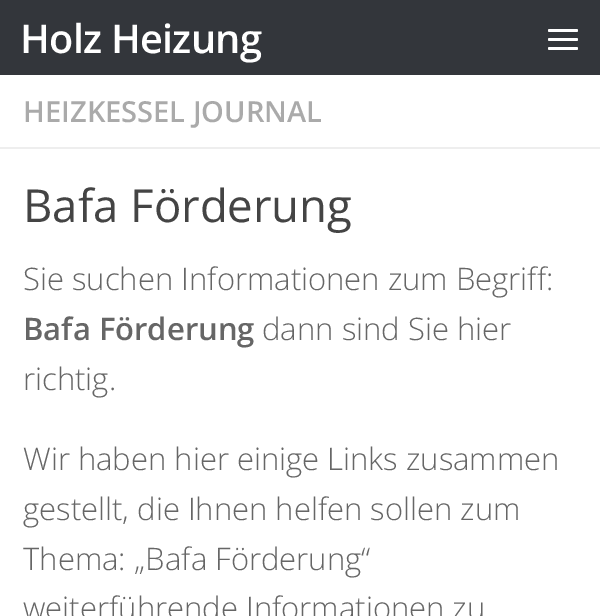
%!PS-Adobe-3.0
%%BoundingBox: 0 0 600 616
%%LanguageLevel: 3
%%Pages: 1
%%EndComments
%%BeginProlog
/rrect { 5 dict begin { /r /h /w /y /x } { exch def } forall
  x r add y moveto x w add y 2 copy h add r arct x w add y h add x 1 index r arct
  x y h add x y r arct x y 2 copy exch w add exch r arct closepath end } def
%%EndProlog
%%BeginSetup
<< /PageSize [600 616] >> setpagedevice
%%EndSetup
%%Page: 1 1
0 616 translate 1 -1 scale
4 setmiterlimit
1 setgray
0 0 600 616 rectfill
0.2 0.212 0.231 setrgbcolor
0 0 600 75 rectfill
1 setgray
548 29 30 3 1.5 rrect fill
548 38 30 3 1.5 rrect fill
548 47 30 3 1.5 rrect fill
0.933 setgray
0 147 600 2 rectfill
/OpenSans-SemiBold [39.75 0 0 -39.75 0 0] selectfont
1 setgray
20 53 moveto -0.75 0 (Holz Heizung) ashow
/OpenSans-SemiBold [29 0 0 -29 0 0] selectfont
0.667 setgray
23 122 moveto (HEIZKESSEL JOURNAL) show
/OpenSans-Regular [45.5 0 0 -45.5 0 0] selectfont
0.267 setgray
23 222 moveto (Bafa Förderung) show
/OpenSans-Light [31 0 0 -31 0 0] selectfont
0.4 setgray
23 290 moveto (Sie suchen Informationen zum Begriff:) show
/OpenSans-SemiBold [31 0 0 -31 0 0] selectfont
23 340 moveto (Bafa Förderung) show
/OpenSans-Light [31 0 0 -31 0 0] selectfont
262 340 moveto (dann sind Sie hier) show
23 390 moveto (richtig.) show
23 470 moveto (Wir haben hier einige Links zusammen) show
23 520 moveto (gestellt, die Ihnen helfen sollen zum) show
23 570 moveto (Thema: „Bafa Förderung“) show
23 619 moveto (weiterführende Informationen zu) show
showpage
%%EOF
